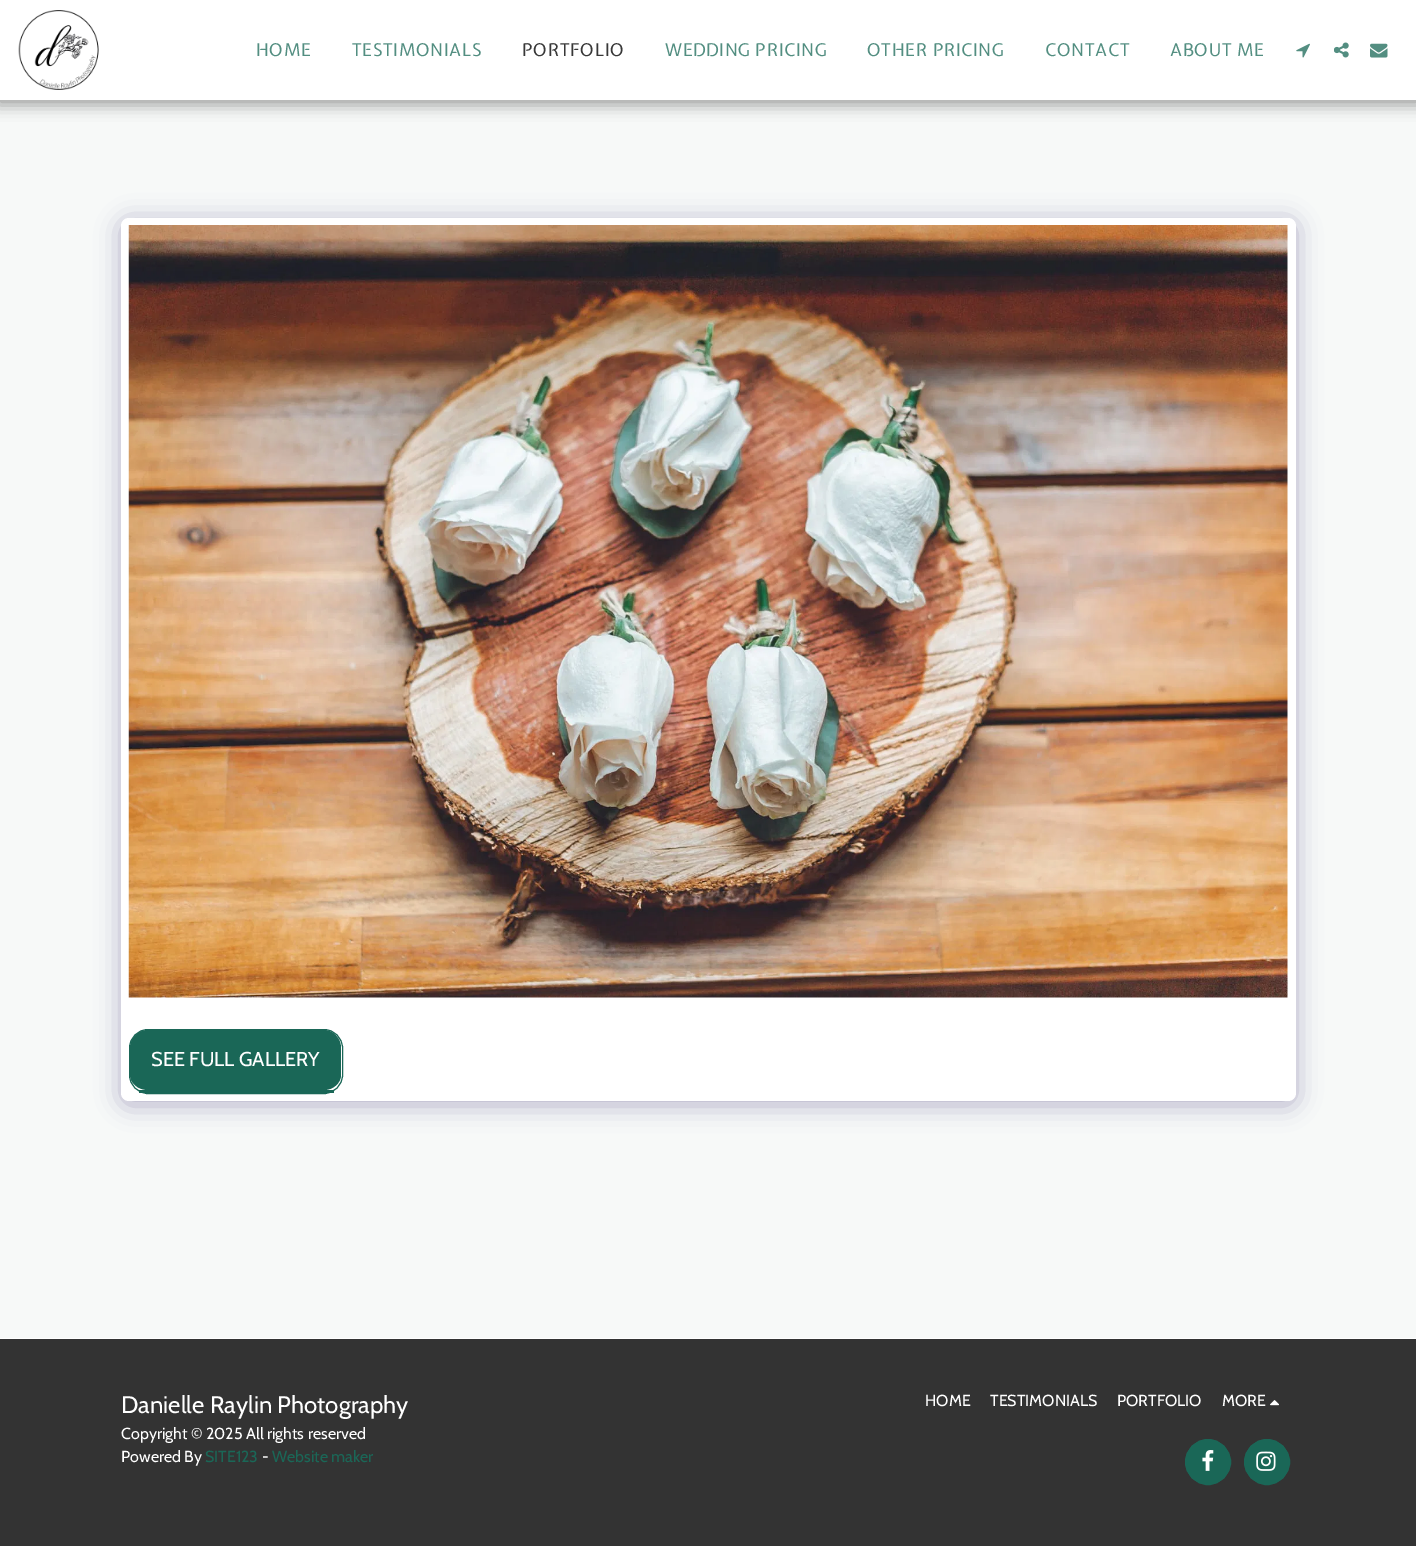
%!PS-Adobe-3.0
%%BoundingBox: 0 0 1416 1546
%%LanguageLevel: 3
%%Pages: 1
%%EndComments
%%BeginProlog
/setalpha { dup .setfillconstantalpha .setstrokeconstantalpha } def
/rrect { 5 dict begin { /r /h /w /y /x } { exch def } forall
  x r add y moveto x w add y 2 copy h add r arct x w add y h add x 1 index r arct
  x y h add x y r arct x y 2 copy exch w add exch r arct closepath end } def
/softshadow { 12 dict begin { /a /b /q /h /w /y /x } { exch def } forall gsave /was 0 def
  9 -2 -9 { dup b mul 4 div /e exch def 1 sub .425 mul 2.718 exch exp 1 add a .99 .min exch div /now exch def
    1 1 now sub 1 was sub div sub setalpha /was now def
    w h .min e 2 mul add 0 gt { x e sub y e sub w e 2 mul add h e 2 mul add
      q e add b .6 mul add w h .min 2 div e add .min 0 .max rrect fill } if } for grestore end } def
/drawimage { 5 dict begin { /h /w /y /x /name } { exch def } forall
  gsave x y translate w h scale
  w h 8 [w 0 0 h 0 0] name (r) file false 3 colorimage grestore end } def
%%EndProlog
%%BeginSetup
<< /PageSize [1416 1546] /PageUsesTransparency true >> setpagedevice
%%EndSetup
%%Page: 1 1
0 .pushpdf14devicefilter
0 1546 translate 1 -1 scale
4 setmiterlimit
0.969 0.976 0.973 setrgbcolor
0 0 1416 1546 rectfill
0 setgray
-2 0 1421 105 0 7.5 0.35 softshadow
1 setgray
0 0 1416 100 rectfill
(images/1.raw) 18 10 81 80 drawimage
(images/2.raw) 1296 43 14 15 drawimage
(images/3.raw) 1334 42 15 16 drawimage
(images/4.raw) 1370 43 18 15 drawimage
0.302 0.247 0.478 setrgbcolor
121 221 1175 884 8 12.5 0.4 softshadow
1 setgray
121 218 1175 883 8 rrect fill
(images/5.raw) 128 225 1160 773 drawimage
0.102 0.404 0.341 setrgbcolor
newpath 148 1030 moveto 324 1030 lineto 333 1030 341 1038 341 1048 curveto 341 1075 lineto 341 1083 333 1090 324 1090 curveto 148 1090 lineto 138 1090 130 1083 130 1075 curveto 130 1048 lineto 130 1038 138 1030 148 1030 curveto closepath fill
129.5 1029.5 213 64 18.5 rrect stroke
139 1090 195 3 rectfill
0.2 setgray
0 1339 1416 207 rectfill
1 setgray
0 1338 1416 1 rectfill
(images/6.raw) 1270 1400 9 6 drawimage
0.102 0.404 0.341 setrgbcolor
newpath 1208 1462 22.5 0 360 arc closepath gsave fill grestore
stroke
(images/7.raw) 1202 1450 12 21 drawimage
newpath 1267 1462 22.5 0 360 arc closepath gsave fill grestore
stroke
(images/8.raw) 1256 1451 20 20 drawimage
/ExpletusSans-Regular [17.5 0 0 -17.5 0 0] selectfont
0.325 0.557 0.506 setrgbcolor
256 56 moveto 0.6 0 (HOME) ashow
352 56 moveto 0.6 0 (TESTIMONIALS) ashow
0.22 setgray
522 56 moveto 0.6 0 (PORTFOLIO) ashow
0.325 0.557 0.506 setrgbcolor
665 56 moveto 0.6 0 (WEDDING PRICING) ashow
867 56 moveto 0.6 0 (OTHER PRICING) ashow
1045 56 moveto 0.6 0 (CONTACT) ashow
1170 56 moveto 0.6 0 (ABOUT ME) ashow
/Cabin-Regular [20 0 0 -20 0 0] selectfont
1 setgray
151 1066 moveto (SEE FULL GALLERY) show
/Cabin-Regular [24 0 0 -24 0 0] selectfont
121 1413 moveto (Danielle Raylin Photography) show
/Cabin-Regular [16 0 0 -16 0 0] selectfont
121 1439 moveto (Copyright © 2025 All rights reserved) show
121 1462 moveto (Powered By) show
0.102 0.404 0.341 setrgbcolor
205 1462 moveto (SITE123) show
1 setgray
262 1462 moveto (-) show
0.102 0.404 0.341 setrgbcolor
272 1462 moveto (Website maker) show
1 setgray
925 1406 moveto (HOME) show
990 1406 moveto (TESTIMONIALS) show
1117 1406 moveto (PORTFOLIO) show
1222 1406 moveto (MORE) show
.poppdf14devicefilter showpage
%%EOF
